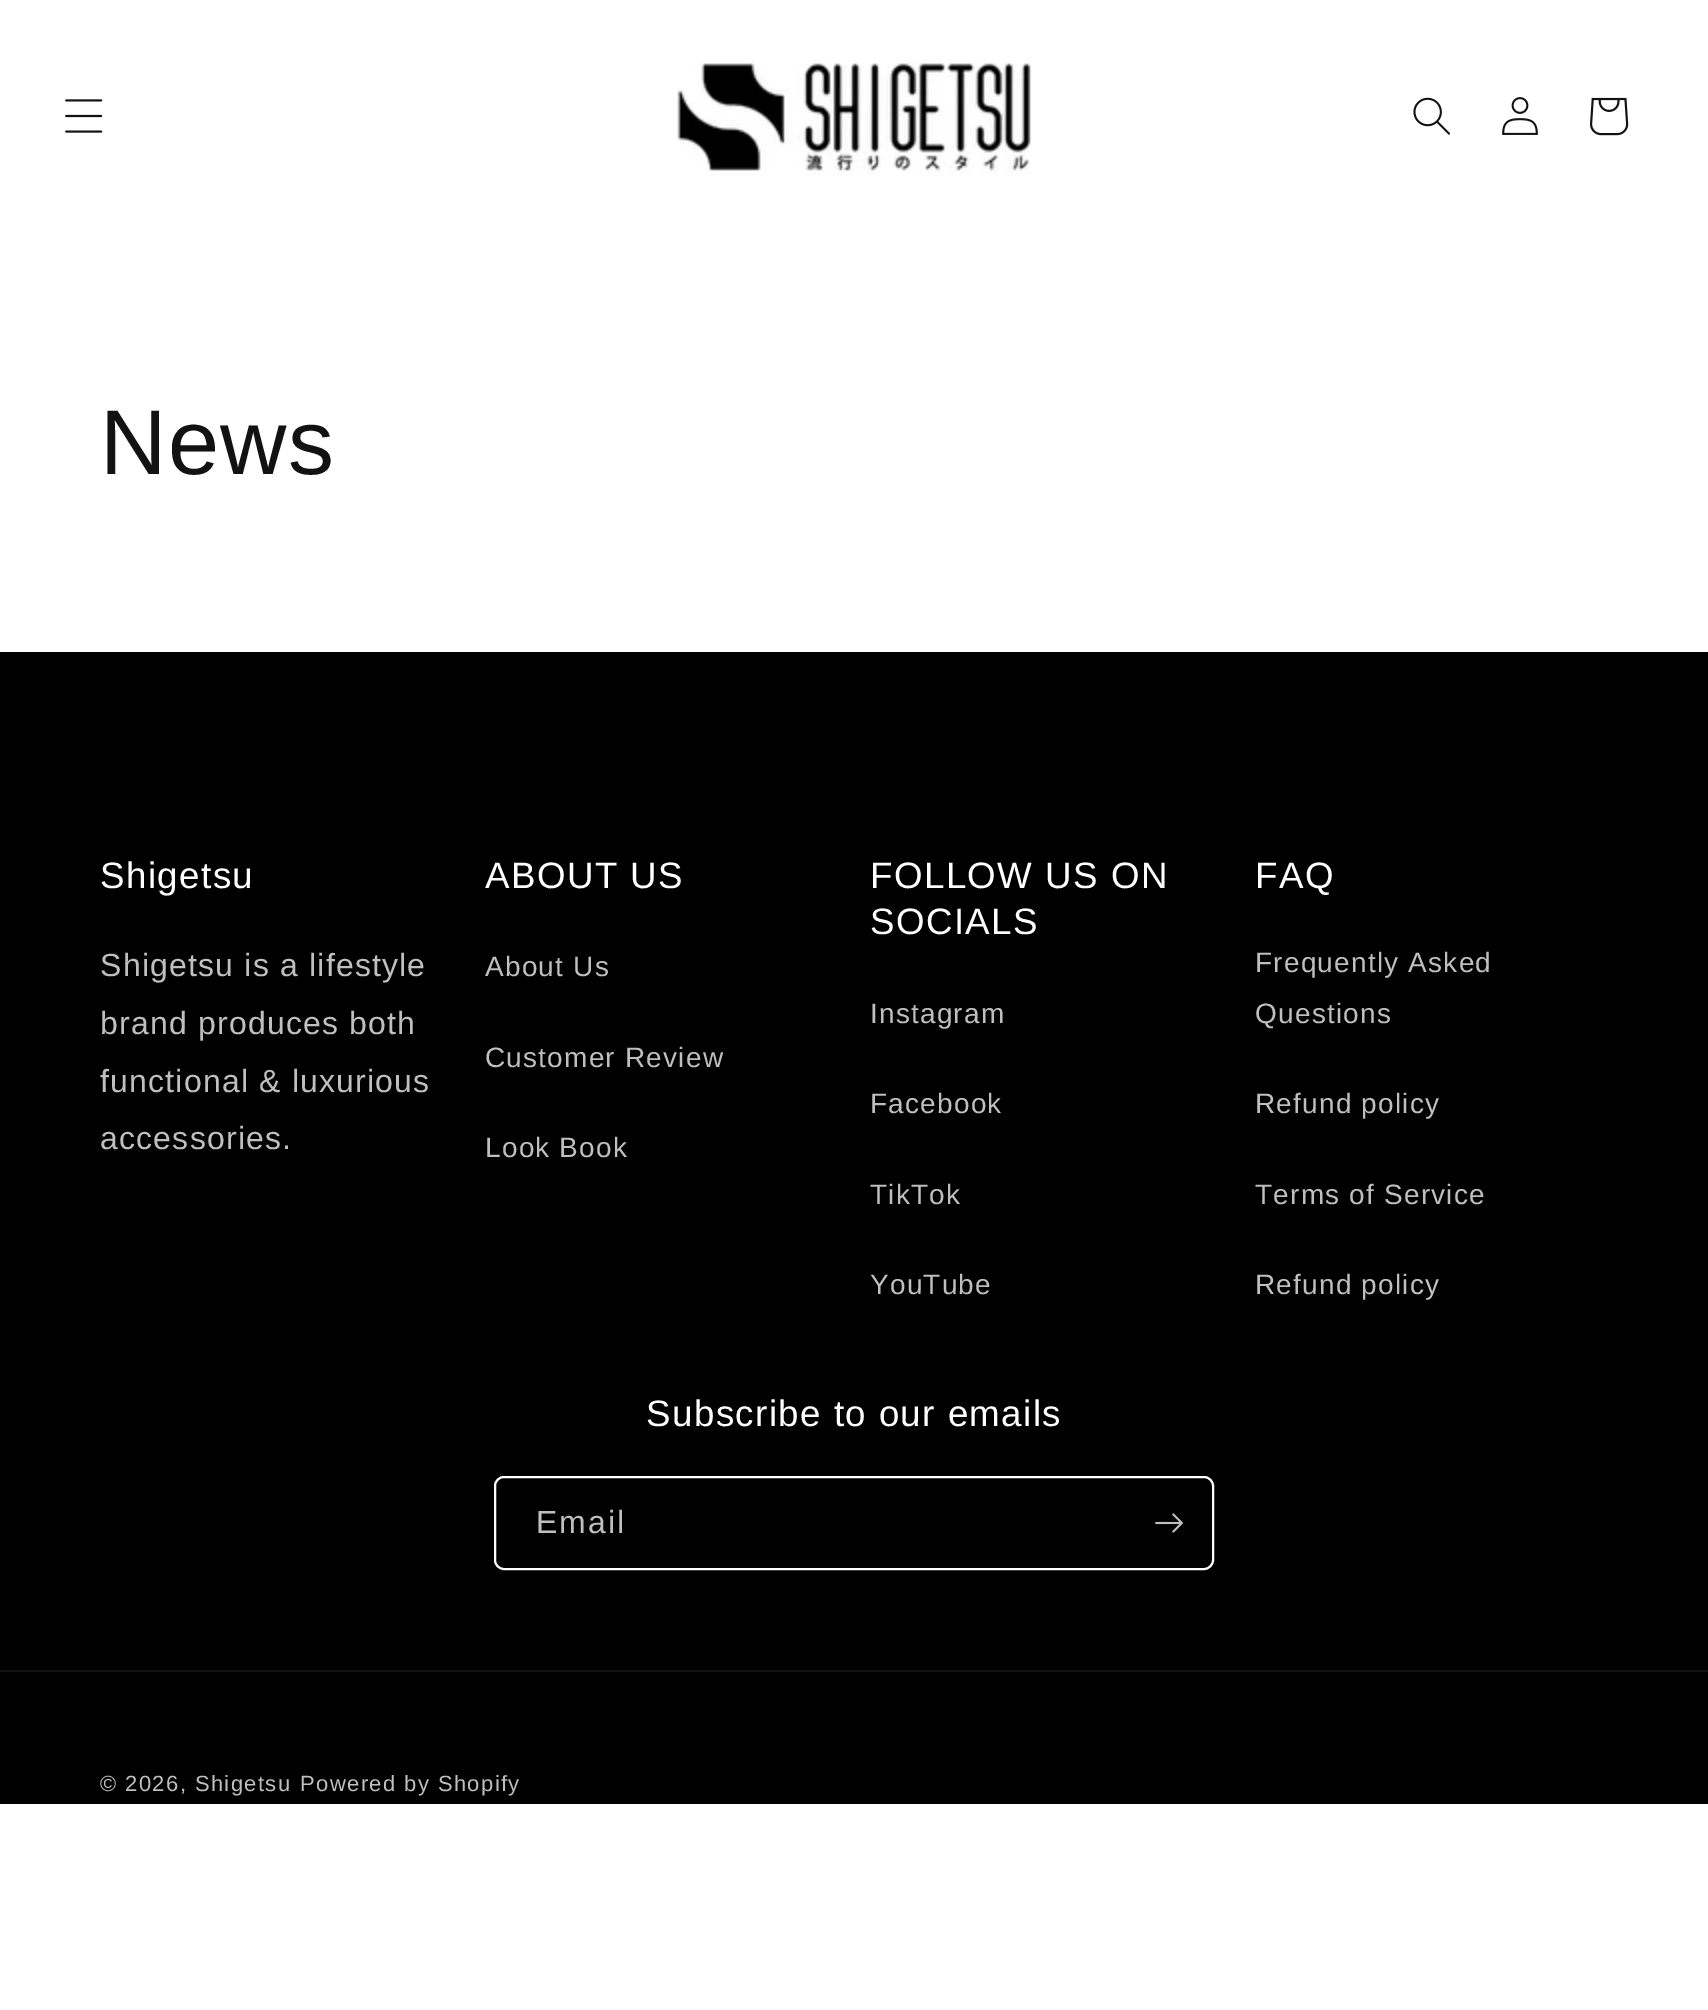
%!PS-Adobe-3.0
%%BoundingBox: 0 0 1708 2010
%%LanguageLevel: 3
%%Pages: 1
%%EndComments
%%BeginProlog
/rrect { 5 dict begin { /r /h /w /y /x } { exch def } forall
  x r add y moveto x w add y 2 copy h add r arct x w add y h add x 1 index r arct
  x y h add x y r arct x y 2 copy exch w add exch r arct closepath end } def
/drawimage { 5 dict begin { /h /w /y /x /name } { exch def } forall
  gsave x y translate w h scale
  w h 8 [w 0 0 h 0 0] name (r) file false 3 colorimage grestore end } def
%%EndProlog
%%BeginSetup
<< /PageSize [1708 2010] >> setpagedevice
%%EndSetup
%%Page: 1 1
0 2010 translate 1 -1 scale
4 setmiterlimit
1 setgray
0 0 1708 2010 rectfill
(images/1.raw) 65 99 38 34 drawimage
(images/2.raw) 677 63 354 113 drawimage
(images/3.raw) 1413 97 37 38 drawimage
(images/4.raw) 1502 97 36 38 drawimage
(images/5.raw) 1590 97 39 39 drawimage
0 setgray
0 652 1708 1152 rectfill
1 setgray
2 setlinewidth
495 1477 718 92 9 rrect stroke
(images/6.raw) 1155 1513 28 20 drawimage
0.078 setgray
0 1670 1708 2 rectfill
/LiberationSans-Regular [92 0 0 -92 0 0] selectfont
0.071 setgray
100 474 moveto 1.4 0 (News) ashow
/LiberationSans-Regular [36.75 0 0 -36.75 0 0] selectfont
1 setgray
100 888 moveto 1.4 0 (Shigetsu) ashow
/LiberationSans-Regular [32 0 0 -32 0 0] selectfont
0.749 setgray
100 976 moveto 1.2 0 (Shigetsu is a lifestyle) ashow
100 1034 moveto 1.2 0 (brand produces both) ashow
100 1092 moveto 1.2 0 (functional & luxurious) ashow
100 1149 moveto 1.2 0 (accessories.) ashow
/LiberationSans-Regular [36.75 0 0 -36.75 0 0] selectfont
1 setgray
485 888 moveto 1.4 0 (ABOUT US) ashow
/LiberationSans-Regular [28 0 0 -28 0 0] selectfont
0.749 setgray
485 976 moveto 1.2 0 (About Us) ashow
485 1067 moveto 1.2 0 (Customer Review) ashow
485 1157 moveto 1.2 0 (Look Book) ashow
/LiberationSans-Regular [36.75 0 0 -36.75 0 0] selectfont
1 setgray
870 888 moveto 1.4 0 (FOLLOW US ON) ashow
870 934 moveto 1.4 0 (SOCIALS) ashow
/LiberationSans-Regular [28 0 0 -28 0 0] selectfont
0.749 setgray
870 1023 moveto 1.2 0 (Instagram) ashow
870 1113 moveto 1.2 0 (Facebook) ashow
870 1204 moveto 1.2 0 (TikTok) ashow
870 1294 moveto 1.2 0 (YouTube) ashow
/LiberationSans-Regular [36.75 0 0 -36.75 0 0] selectfont
1 setgray
1255 888 moveto 1.4 0 (FAQ) ashow
/LiberationSans-Regular [28 0 0 -28 0 0] selectfont
0.749 setgray
1255 972 moveto 1.2 0 (Frequently Asked) ashow
1255 1023 moveto 1.2 0 (Questions) ashow
1255 1113 moveto 1.2 0 (Refund policy) ashow
1255 1204 moveto 1.2 0 (Terms of Service) ashow
1255 1294 moveto 1.2 0 (Refund policy) ashow
/LiberationSans-Regular [36.75 0 0 -36.75 0 0] selectfont
1 setgray
646 1426 moveto 1.4 0 (Subscribe to our emails) ashow
/LiberationSans-Regular [32 0 0 -32 0 0] selectfont
0.749 setgray
536 1533 moveto 2 0 (Email) ashow
/LiberationSans-Regular [22 0 0 -22 0 0] selectfont
100 1791 moveto 1.4 0 (© 2026, Shigetsu) ashow
300 1791 moveto 1.4 0 (Powered by Shopify) ashow
showpage
%%EOF
